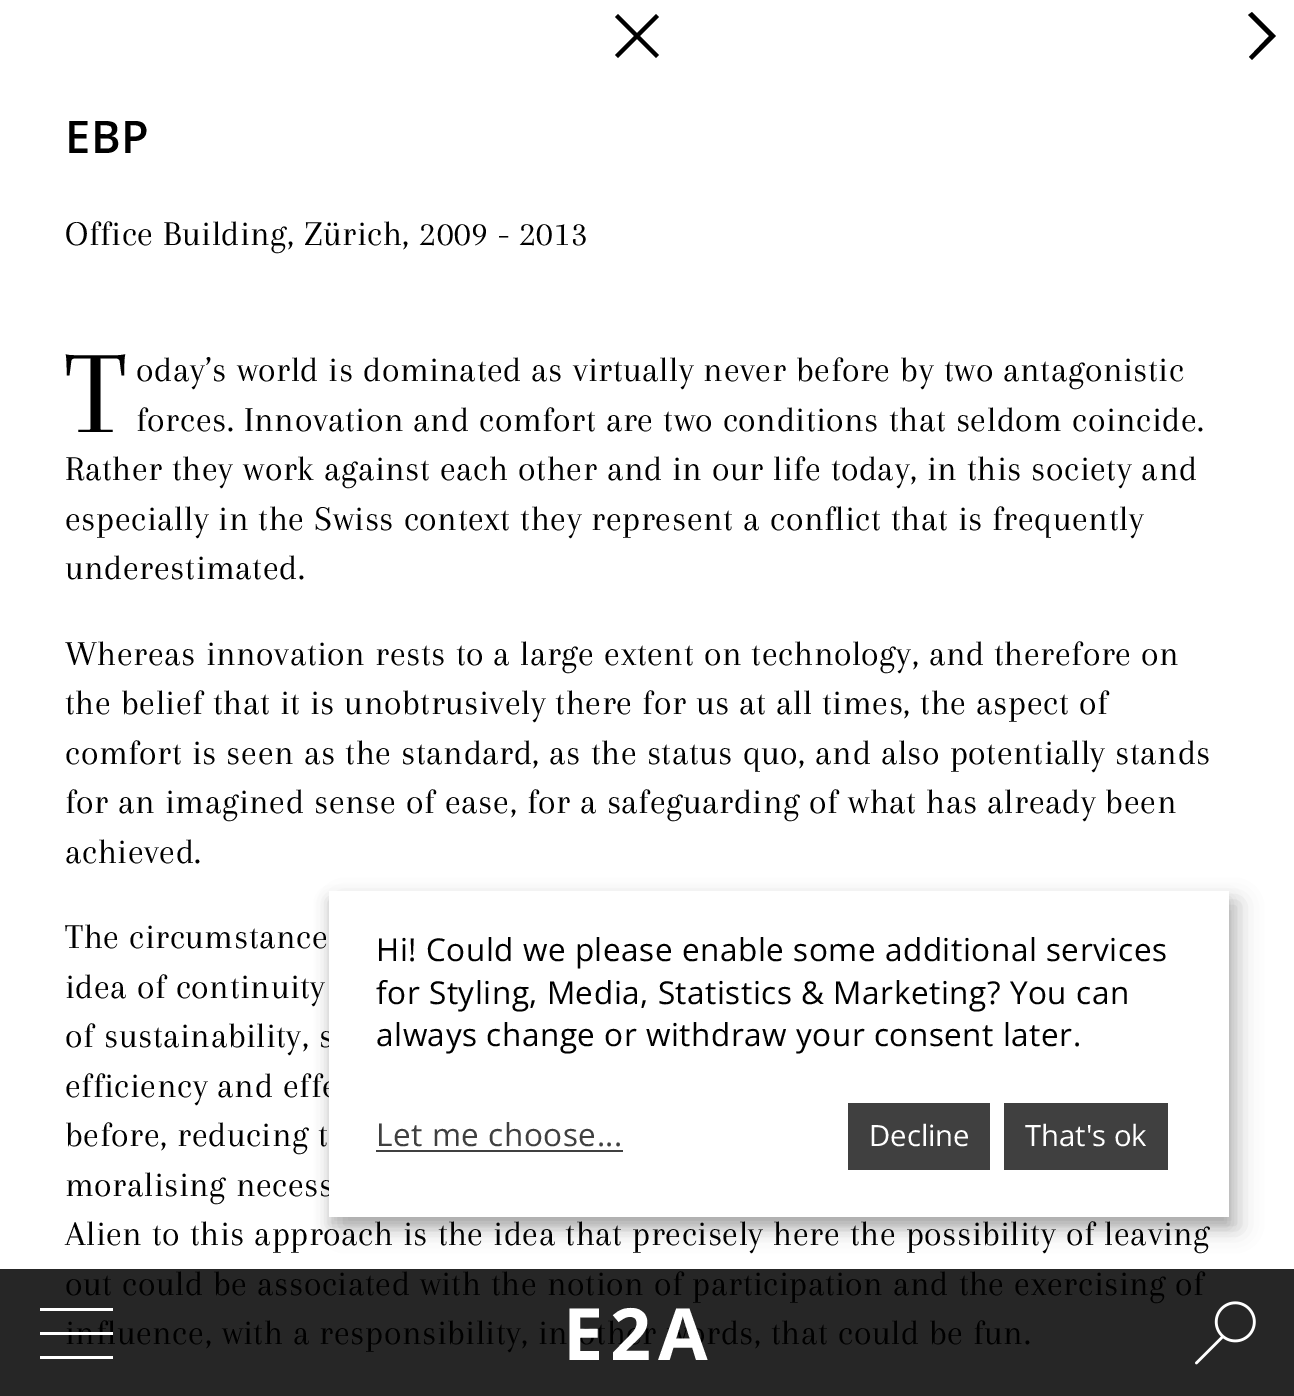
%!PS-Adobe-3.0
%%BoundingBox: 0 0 1294 1396
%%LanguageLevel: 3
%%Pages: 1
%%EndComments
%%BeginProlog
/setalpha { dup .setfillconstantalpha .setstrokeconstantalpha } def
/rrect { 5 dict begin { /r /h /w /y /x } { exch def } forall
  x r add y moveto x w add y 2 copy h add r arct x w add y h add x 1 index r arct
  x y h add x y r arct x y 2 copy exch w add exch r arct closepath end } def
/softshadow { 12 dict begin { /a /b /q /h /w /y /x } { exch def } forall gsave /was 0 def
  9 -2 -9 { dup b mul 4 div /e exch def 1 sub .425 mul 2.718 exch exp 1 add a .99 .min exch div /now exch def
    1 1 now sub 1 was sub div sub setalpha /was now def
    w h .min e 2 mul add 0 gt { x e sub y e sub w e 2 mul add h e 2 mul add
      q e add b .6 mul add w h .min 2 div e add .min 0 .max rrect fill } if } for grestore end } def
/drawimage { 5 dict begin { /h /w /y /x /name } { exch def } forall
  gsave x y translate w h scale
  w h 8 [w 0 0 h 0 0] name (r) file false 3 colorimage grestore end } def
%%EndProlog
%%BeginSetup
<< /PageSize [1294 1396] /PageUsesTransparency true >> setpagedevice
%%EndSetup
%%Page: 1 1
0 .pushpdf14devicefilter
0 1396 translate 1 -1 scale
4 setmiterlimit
1 setgray
0 0 1294 1396 rectfill
0.149 setgray
0 1269 1294 127 rectfill
0 setgray
newpath 656 14 moveto 637 33 lineto 618 14 lineto 615 17 lineto 634 36 lineto 615 55 lineto 618 58 lineto 637 39 lineto 656 58 lineto 659 55 lineto 640 36 lineto 659 17 lineto closepath fill
newpath 1252 12 moveto 1276 36 lineto 1252 60 lineto 1249 57 lineto 1269 36 lineto 1248 15 lineto closepath fill
340 902 900 327 0 11 0.19 softshadow
329 900 900 326 0 7 0.2 softshadow
/OpenSans-SemiBold [45 0 0 -45 0 0] selectfont
65 153 moveto 0.55 0 (EBP) ashow
/Arapey-Regular [36 0 0 -36 0 0] selectfont
65 245 moveto 0.55 0 (Office Building, Zürich, 2009 - 2013) ashow
/Arapey-Regular [122 0 0 -122 0 0] selectfont
65 432 moveto 0.55 0 (T) ashow
/Arapey-Regular [36 0 0 -36 0 0] selectfont
136 381 moveto 0.55 0 (oday’s world is dominated as virtually never before by two antagonistic) ashow
136 431 moveto 0.55 0 (forces. Innovation and comfort are two conditions that seldom coincide.) ashow
65 480 moveto 0.55 0 (Rather they work against each other and in our life today, in this society and) ashow
65 530 moveto 0.55 0 (especially in the Swiss context they represent a conflict that is frequently) ashow
65 579 moveto 0.55 0 (underestimated.) ashow
65 665 moveto 0.55 0 (Whereas innovation rests to a large extent on technology, and therefore on) ashow
65 714 moveto 0.55 0 (the belief that it is unobtrusively there for us at all times, the aspect of) ashow
65 764 moveto 0.55 0 (comfort is seen as the standard, as the status quo, and also potentially stands) ashow
65 813 moveto 0.55 0 (for an imagined sense of ease, for a safeguarding of what has already been) ashow
65 863 moveto 0.55 0 (achieved.) ashow
65 948 moveto 0.55 0 (The circumstance) ashow
65 998 moveto 0.55 0 (idea of continuity) ashow
65 1047 moveto 0.55 0 (of sustainability, s) ashow
65 1097 moveto 0.55 0 (efficiency and effe) ashow
65 1146 moveto 0.55 0 (before, reducing t) ashow
65 1196 moveto 0.55 0 (moralising necess) ashow
65 1245 moveto 0.55 0 (Alien to this approach is the idea that precisely here the possibility of leaving) ashow
65 1295 moveto 0.55 0 (out could be associated with the notion of participation and the exercising of) ashow
65 1344 moveto 0.55 0 (influence, with a responsibility, in other words, that could be fun.) ashow
1 setgray
newpath 40 1308 moveto 113 1308 lineto 113 1311 lineto 40 1311 lineto closepath 40 1332 moveto 113 1332 lineto 113 1335 lineto 40 1335 lineto closepath 40 1356 moveto 113 1356 lineto 113 1359 lineto 40 1359 lineto closepath fill
/OpenSans-Bold [72 0 0 -72 0 0] selectfont
563 1360 moveto 7 0 (E2A) ashow
(images/1.raw) 1195 1301 61 64 drawimage
329 891 900 326 rectfill
/OpenSans-Regular [31.5 0 0 -31.5 0 0] selectfont
0 setgray
376 961 moveto 0.55 0 (Hi! Could we please enable some additional services) ashow
376 1004 moveto 0.55 0 (for Styling, Media, Statistics & Marketing? You can) ashow
376 1046 moveto 0.55 0 (always change or withdraw your consent later.) ashow
0.251 setgray
376 1146 moveto 0.55 0 (Let me choose...) ashow
376 1150 247 2 rectfill
848 1103 142 67 rectfill
/OpenSans-Regular [29.25 0 0 -29.25 0 0] selectfont
1 setgray
869 1146 moveto (Decline) show
0.251 setgray
1004 1103 164 67 rectfill
1 setgray
1025 1146 moveto (That's ok) show
.poppdf14devicefilter showpage
%%EOF
